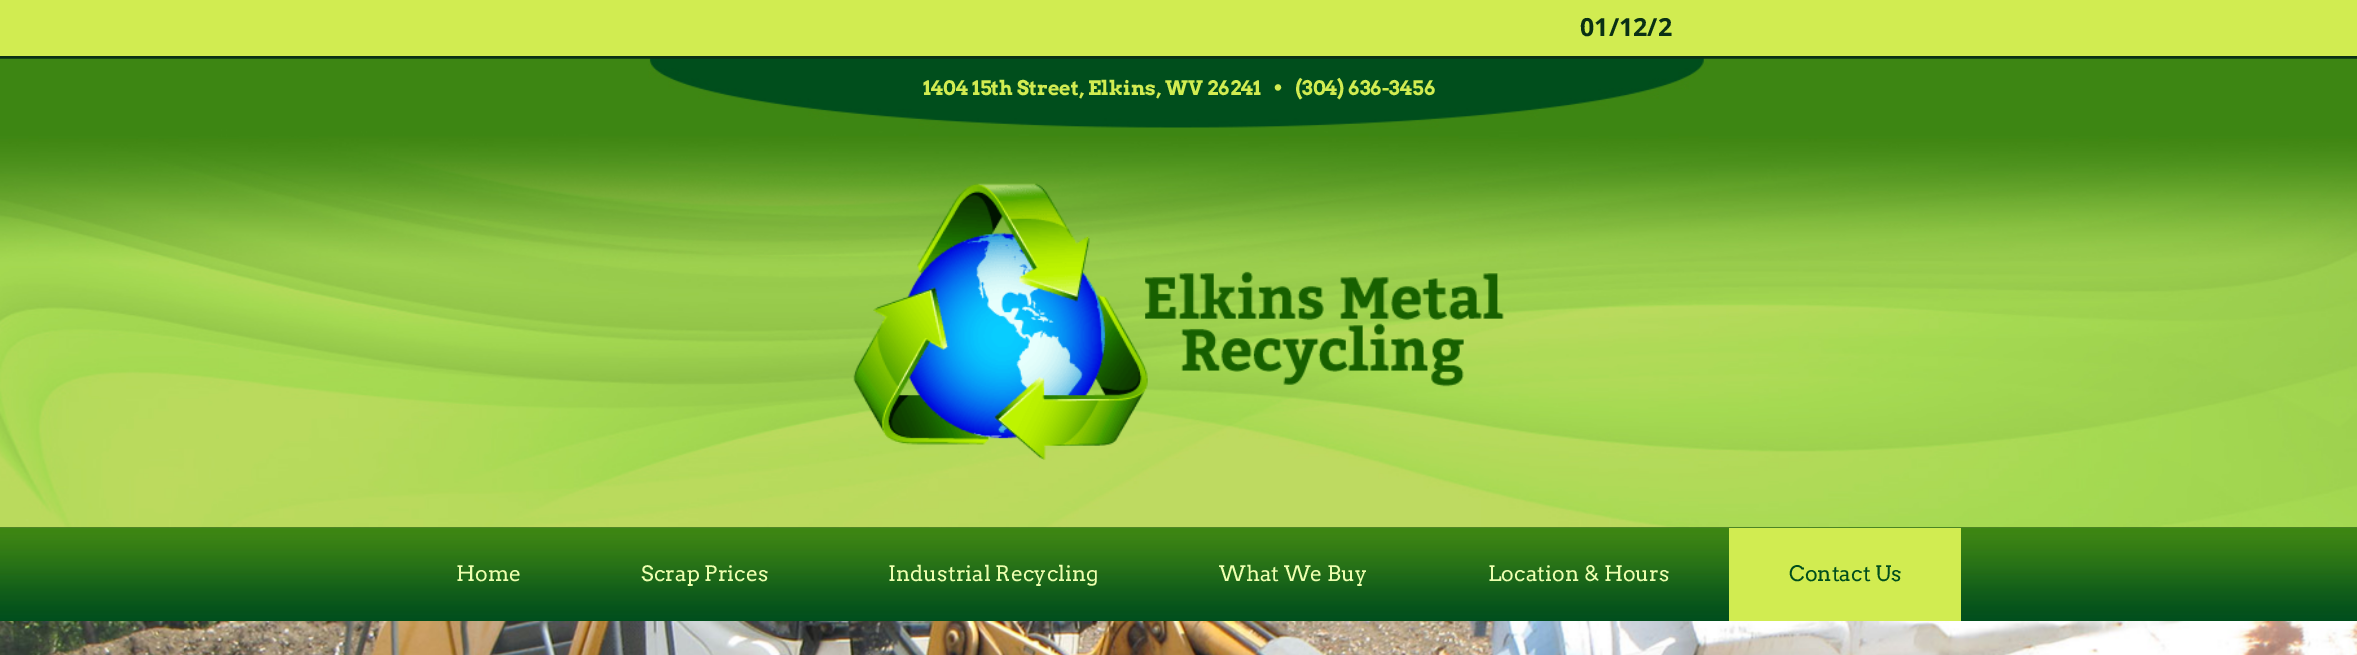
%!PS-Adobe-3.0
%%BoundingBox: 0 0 2357 655
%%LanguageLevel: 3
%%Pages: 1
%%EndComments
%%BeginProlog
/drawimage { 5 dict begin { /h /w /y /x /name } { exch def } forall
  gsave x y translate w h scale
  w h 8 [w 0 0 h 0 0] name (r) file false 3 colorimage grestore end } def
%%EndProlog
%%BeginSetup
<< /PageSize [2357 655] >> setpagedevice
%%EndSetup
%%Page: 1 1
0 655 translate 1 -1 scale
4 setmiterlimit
1 setgray
0 0 2357 655 rectfill
(images/1.raw) 0 527 2357 1 drawimage
0.82 0.925 0.318 setrgbcolor
0 0 2357 56 rectfill
0.039 0.188 0.082 setrgbcolor
0 56 2357 3 rectfill
(images/2.raw) 0 58 2357 470 drawimage
(images/3.raw) 853 183 651 277 drawimage
(images/4.raw) 0 527 2357 94 drawimage
0.82 0.925 0.318 setrgbcolor
1729 528 232 93 rectfill
(images/5.raw) 0 621 2357 34 drawimage
/OpenSans-Bold [25 0 0 -25 0 0] selectfont
0.039 0.188 0.082 setrgbcolor
1580 36 moveto (01/12/2) show
/Arvo-Bold [20 0 0 -20 0 0] selectfont
0.82 0.925 0.318 setrgbcolor
923 95 moveto (1404 15th Street, Elkins, WV 26241) show
1273 95 moveto (•) show
1295 95 moveto (\(304\) 636-3456) show
/Arvo-Regular [21.25 0 0 -21.25 0 0] selectfont
0.929 1 0.686 setrgbcolor
456 581 moveto (Home) show
641 581 moveto (Scrap Prices) show
888 581 moveto (Industrial Recycling) show
1219 581 moveto (What We Buy) show
1488 581 moveto (Location & Hours) show
0 0.306 0.11 setrgbcolor
1789 581 moveto (Contact Us) show
showpage
%%EOF
